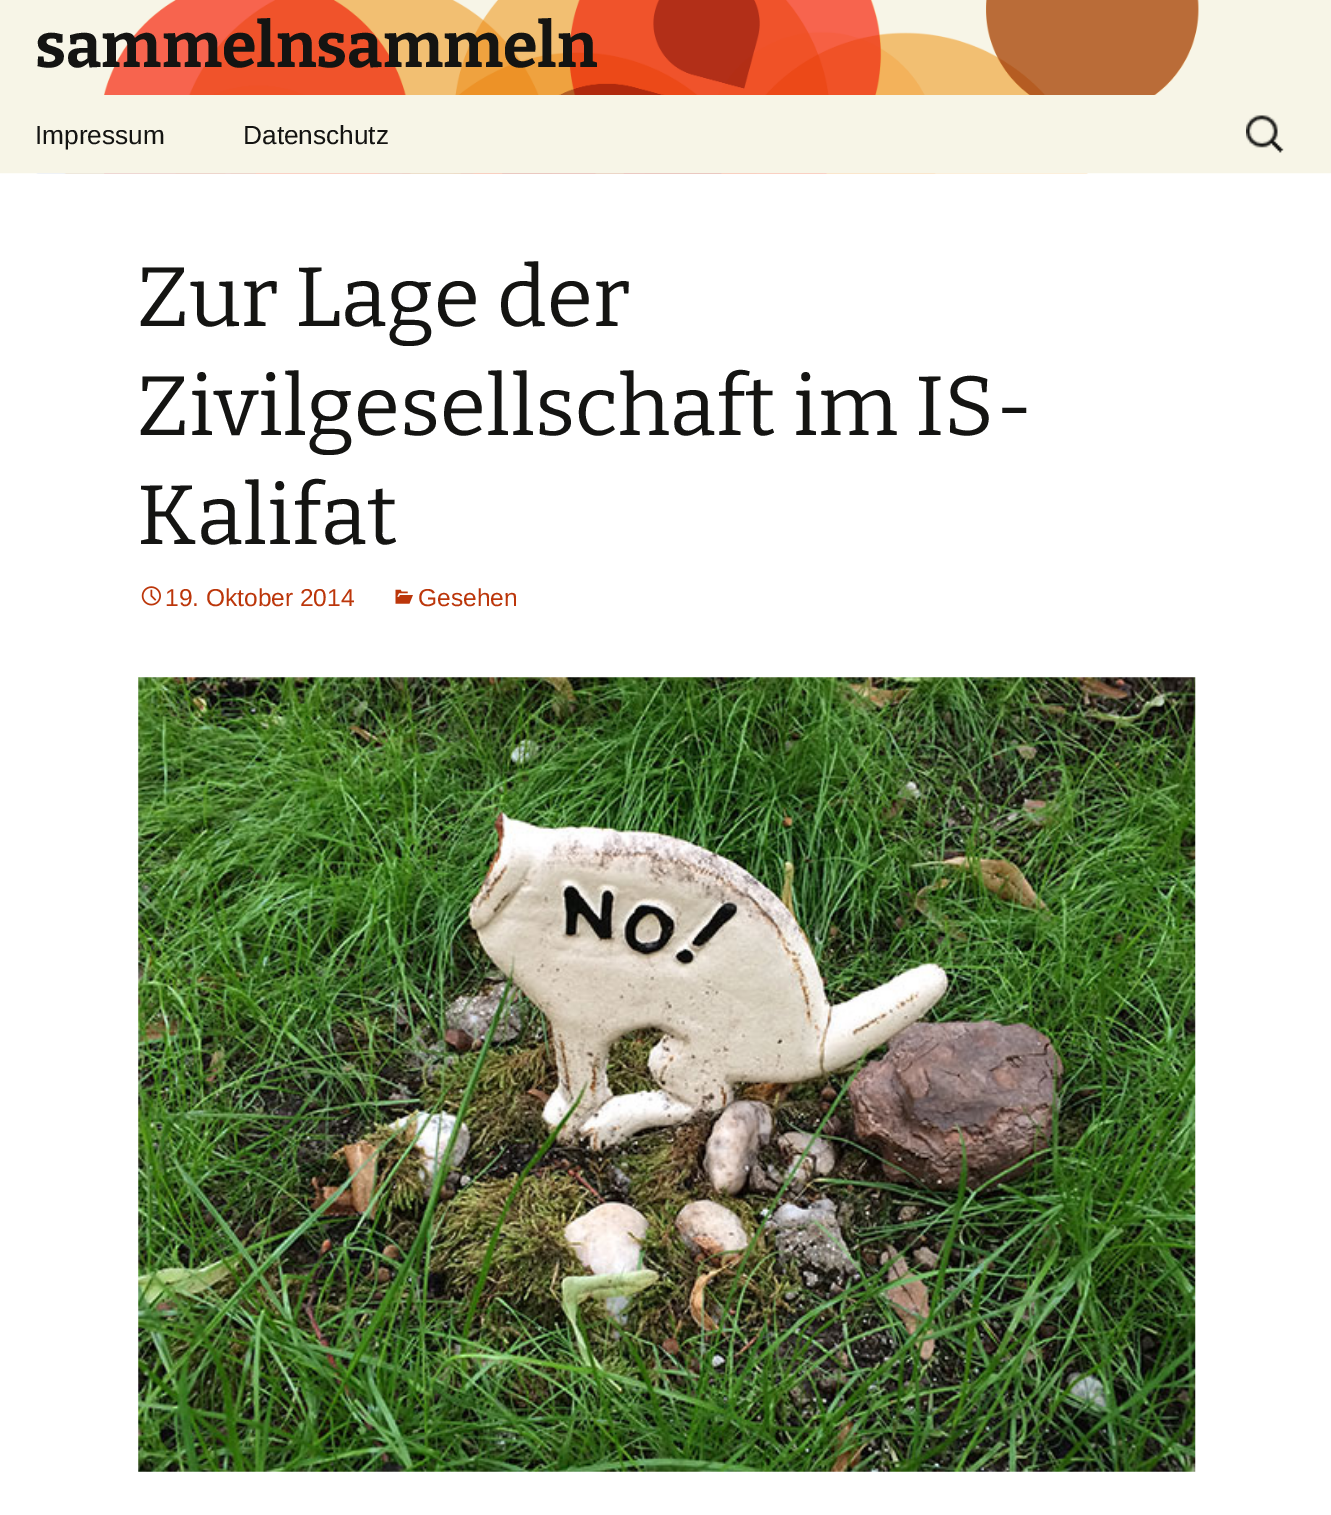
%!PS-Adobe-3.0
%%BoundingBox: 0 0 1331 1515
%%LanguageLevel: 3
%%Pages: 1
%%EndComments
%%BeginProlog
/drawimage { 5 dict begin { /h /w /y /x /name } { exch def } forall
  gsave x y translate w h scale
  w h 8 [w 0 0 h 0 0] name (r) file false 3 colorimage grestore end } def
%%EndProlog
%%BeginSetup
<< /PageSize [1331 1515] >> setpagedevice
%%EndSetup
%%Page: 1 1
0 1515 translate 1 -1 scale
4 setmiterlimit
1 setgray
0 0 1331 1515 rectfill
(images/1.raw) 0 0 1331 174 drawimage
0.969 0.961 0.906 setrgbcolor
36 95 1120 78 rectfill
(images/2.raw) 1246 115 38 38 drawimage
(images/3.raw) 141 586 20 20 drawimage
(images/4.raw) 395 589 18 15 drawimage
(images/5.raw) 138 677 1058 795 drawimage
/Bitter-Bold [63 0 0 -63 0 0] selectfont
0.078 0.078 0.071 setrgbcolor
35 67 moveto (sammelnsammeln) show
/LiberationSans-Regular [26.25 0 0 -26.25 0 0] selectfont
35 144 moveto (Impressum) show
243 144 moveto (Datenschutz) show
/Bitter-Regular [84 0 0 -84 0 0] selectfont
137 326 moveto (Zur Lage der) show
137 435 moveto (Zivilgesellschaft im IS-) show
137 544 moveto (Kalifat) show
/LiberationSans-Regular [24.5 0 0 -24.5 0 0] selectfont
0.737 0.212 0.039 setrgbcolor
165 606 moveto (19. Oktober 2014) show
418 606 moveto (Gesehen) show
showpage
%%EOF
